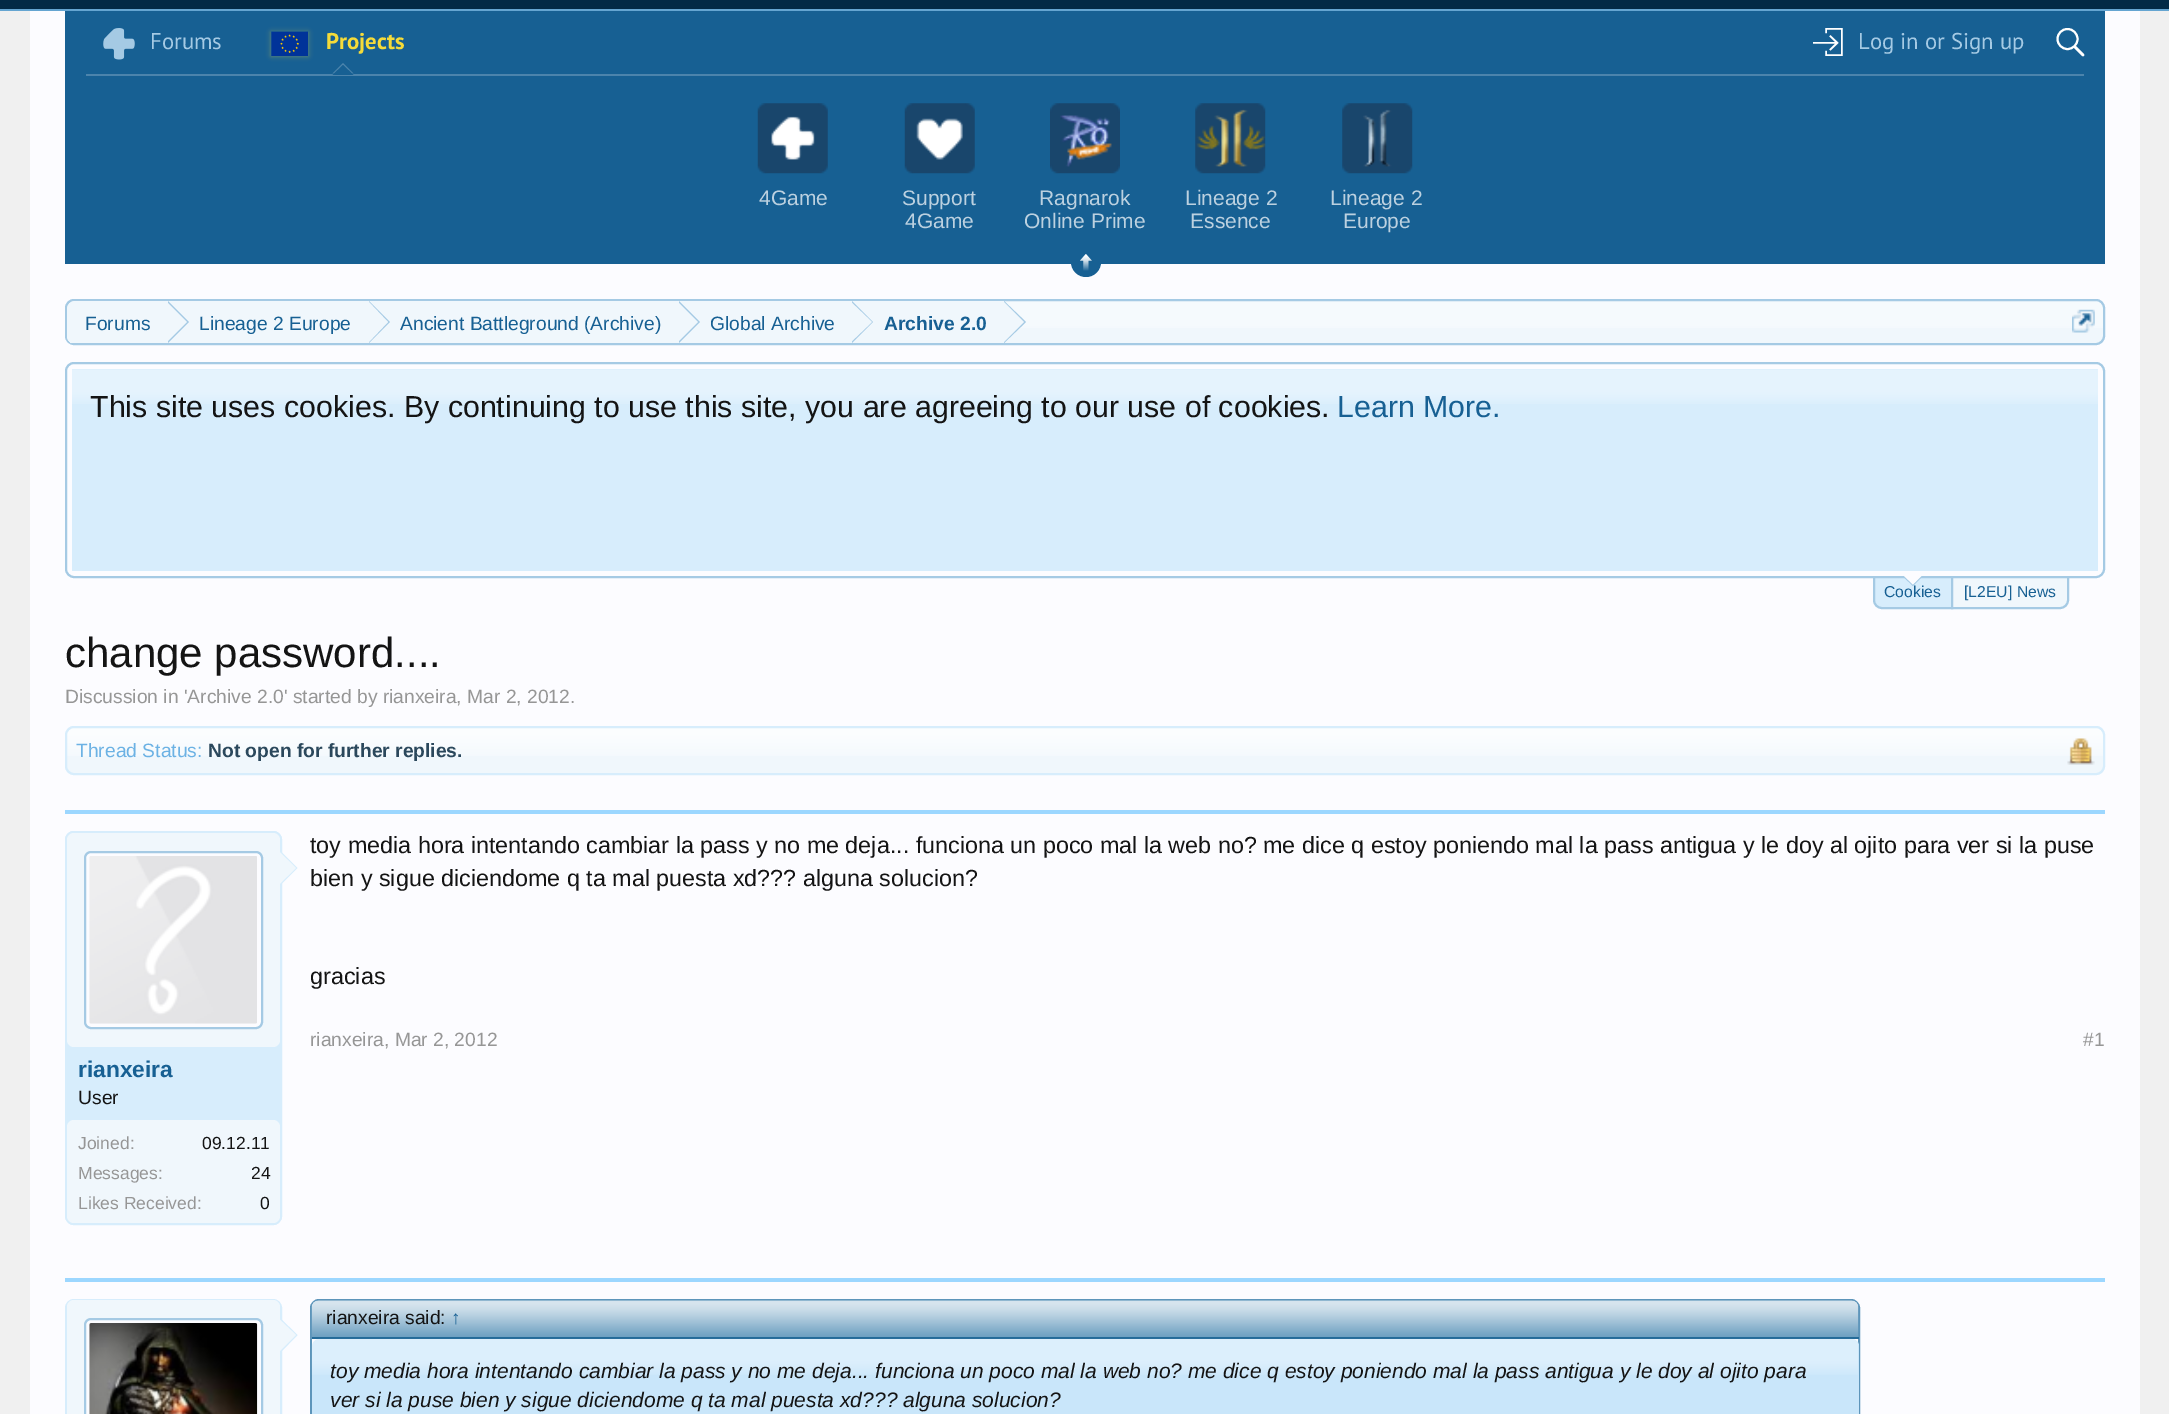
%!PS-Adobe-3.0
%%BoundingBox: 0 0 2169 1414
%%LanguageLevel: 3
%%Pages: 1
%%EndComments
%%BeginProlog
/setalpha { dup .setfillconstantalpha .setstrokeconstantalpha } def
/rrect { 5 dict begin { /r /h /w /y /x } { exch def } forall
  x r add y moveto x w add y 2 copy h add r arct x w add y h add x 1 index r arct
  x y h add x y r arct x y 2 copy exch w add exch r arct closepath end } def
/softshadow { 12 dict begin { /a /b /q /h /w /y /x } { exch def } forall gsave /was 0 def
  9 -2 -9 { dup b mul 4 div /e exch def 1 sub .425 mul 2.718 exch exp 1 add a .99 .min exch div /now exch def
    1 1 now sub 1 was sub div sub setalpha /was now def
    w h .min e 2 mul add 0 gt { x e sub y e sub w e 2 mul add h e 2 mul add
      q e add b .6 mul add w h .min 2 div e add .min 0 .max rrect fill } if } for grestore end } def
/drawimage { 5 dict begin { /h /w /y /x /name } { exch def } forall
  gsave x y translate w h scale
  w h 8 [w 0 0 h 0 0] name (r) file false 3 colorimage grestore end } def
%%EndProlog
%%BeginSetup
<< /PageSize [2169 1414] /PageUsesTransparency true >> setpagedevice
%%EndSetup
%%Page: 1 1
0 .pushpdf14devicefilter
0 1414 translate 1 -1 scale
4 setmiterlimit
0.941 setgray
0 0 2169 1414 rectfill
0.012 0.165 0.275 setrgbcolor
0 0 2169 9 rectfill
0.396 0.647 0.82 setrgbcolor
0 9 2169 2 rectfill
0.988 0.988 1 setrgbcolor
30 11 2110 1403 rectfill
0.09 0.376 0.576 setrgbcolor
65 11 2040 253 rectfill
0.298 0.518 0.675 setrgbcolor
86 74 1998 2 rectfill
(images/1.raw) 103 28 32 32 drawimage
0.961 0.859 0.224 setrgbcolor
271 32 37 24 0 2.5 0.35 softshadow
(images/2.raw) 271 31 37 25 drawimage
0.298 0.518 0.675 setrgbcolor
newpath 353.5 73.5 moveto 332.5 73.5 lineto 343 63 lineto closepath fill
0.09 0.376 0.576 setrgbcolor
newpath 353.5 75 moveto 332.5 75 lineto 343 65 lineto closepath fill
(images/3.raw) 1813 28 30 28 drawimage
1 setgray
2 setlinewidth
newpath 2067.5 39 10 0 360 arc closepath stroke
2.5 setlinewidth
1 setlinecap
newpath 2075 47 moveto 2083 55 lineto stroke
0.09 0.376 0.576 setrgbcolor
newpath 1086 262 15 0 360 arc closepath fill
(images/4.raw) 1080 254 12 17 drawimage
(images/5.raw) 757 103 71 71 drawimage
(images/6.raw) 904 103 71 71 drawimage
(images/7.raw) 1050 103 70 71 drawimage
(images/8.raw) 1195 103 71 71 drawimage
(images/9.raw) 1342 103 71 71 drawimage
0.941 0.969 0.988 setrgbcolor
65 299 2040 46 9 rrect fill
(images/10.raw) 65 301 2040 27 drawimage
0.647 0.792 0.894 setrgbcolor
2 setlinewidth
0 setlinecap
66 300 2038 44 8 rrect stroke
gsave
67 301 2037 42 7 rrect clip newpath
0.941 0.969 0.988 setrgbcolor
newpath 76 301 moveto 168 301 lineto 168 345 lineto 76 345 lineto 71 345 67 341 67 336 curveto 67 310 lineto 67 305 71 301 76 301 curveto closepath fill
grestore
0.941 0.969 0.988 setrgbcolor
168 301 837 27 rectfill
0.647 0.792 0.894 setrgbcolor
newpath 168 343 moveto 168 301 lineto 189 322 lineto closepath fill
0.941 0.969 0.988 setrgbcolor
newpath 166 343 moveto 166 301 lineto 187 322 lineto closepath fill
0.647 0.792 0.894 setrgbcolor
newpath 369 343 moveto 369 301 lineto 390 322 lineto closepath fill
0.941 0.969 0.988 setrgbcolor
newpath 368 343 moveto 368 301 lineto 388 322 lineto closepath fill
0.647 0.792 0.894 setrgbcolor
newpath 679 343 moveto 679 301 lineto 700 322 lineto closepath fill
0.941 0.969 0.988 setrgbcolor
newpath 677 343 moveto 677 301 lineto 698 322 lineto closepath fill
0.647 0.792 0.894 setrgbcolor
newpath 852 343 moveto 852 301 lineto 873 322 lineto closepath fill
0.941 0.969 0.988 setrgbcolor
newpath 850 343 moveto 850 301 lineto 872 322 lineto closepath fill
0.647 0.792 0.894 setrgbcolor
newpath 1004 343 moveto 1004 301 lineto 1026 322 lineto closepath fill
0.941 0.969 0.988 setrgbcolor
newpath 1003 343 moveto 1003 301 lineto 1024 322 lineto closepath fill
(images/11.raw) 2072 309 23 24 drawimage
0.647 0.792 0.894 setrgbcolor
66 363 2038 214 8 rrect stroke
0.843 0.929 0.988 setrgbcolor
72 369 2026 202 rectfill
(images/13.raw) 72 369 2025 35 drawimage
(images/12.raw) 2096 369 2 35 drawimage
newpath 1874 577 moveto 1952 577 lineto 1952 608 lineto 1882 608 lineto 1877.5 608 1874 604.5 1874 600 curveto closepath gsave fill grestore
0.647 0.792 0.894 setrgbcolor
stroke
0.941 0.969 0.988 setrgbcolor
newpath 1952 577 moveto 2068 577 lineto 2068 600 lineto 2068 604.5 2064.5 608 2060 608 curveto 1952 608 lineto closepath gsave fill grestore
0.647 0.792 0.894 setrgbcolor
stroke
0.941 0.969 0.988 setrgbcolor
65 726 2040 49 9 rrect fill
(images/14.raw) 65 728 2040 28 drawimage
0.843 0.929 0.988 setrgbcolor
66 727 2038 47 8 rrect stroke
(images/15.raw) 2067 738 28 27 drawimage
0.612 0.843 1 setrgbcolor
65 810 2040 4 rectfill
0.843 0.929 0.988 setrgbcolor
65 831 217 394 9 rrect fill
(images/16.raw) 65 1216 216 7 drawimage
66 832 215 392 8 rrect stroke
0.941 0.969 0.988 setrgbcolor
67 833 213 214 7 rrect fill
0.988 0.988 1 setrgbcolor
85 852 177 176 6 rrect gsave fill grestore
0.647 0.792 0.894 setrgbcolor
stroke
(images/17.raw) 89 856 168 168 drawimage
0.843 0.929 0.988 setrgbcolor
newpath 280 885.5 moveto 280 850.5 lineto 297.5 868 lineto closepath fill
0.941 0.969 0.988 setrgbcolor
newpath 278 885.5 moveto 278 850.5 lineto 296 868 lineto closepath fill
67 1120 213 103 7 rrect fill
0.612 0.843 1 setrgbcolor
65 1278 2040 4 rectfill
0.843 0.929 0.988 setrgbcolor
66 1300 215 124 8 rrect stroke
0.941 0.969 0.988 setrgbcolor
67 1300 213 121 7 rrect fill
0.988 0.988 1 setrgbcolor
85 1319 177 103 6 rrect gsave fill grestore
0.647 0.792 0.894 setrgbcolor
stroke
(images/18.raw) 89 1323 169 91 drawimage
0.843 0.929 0.988 setrgbcolor
newpath 280 1353 moveto 280 1318 lineto 297.5 1335 lineto closepath fill
0.941 0.969 0.988 setrgbcolor
newpath 278 1353 moveto 278 1318 lineto 296 1335 lineto closepath fill
0.365 0.584 0.729 setrgbcolor
311 1300 1548 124 8 rrect stroke
newpath 319 1300 moveto 1852 1300 lineto 1856 1300 1859 1303 1859 1307 curveto 1859 1339 lineto 312 1339 lineto 312 1307 lineto 312 1303 315 1300 319 1300 curveto closepath fill
(images/19.raw) 311 1300 1548 37 drawimage
0.141 0.42 0.6 setrgbcolor
312 1337 1547 2 rectfill
0.788 0.902 0.98 setrgbcolor
312 1339 1547 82 7 rrect fill
(images/20.raw) 311 1338 1547 37 drawimage
/PTSans-Regular [22.75 0 0 -22.75 0 0] selectfont
0.647 0.792 0.894 setrgbcolor
150 49 moveto (Forums) show
/PTSans-Bold [22.75 0 0 -22.75 0 0] selectfont
0.961 0.859 0.224 setrgbcolor
326 49 moveto (Projects) show
/PTSans-Regular [22.75 0 0 -22.75 0 0] selectfont
0.647 0.792 0.894 setrgbcolor
1858 49 moveto (Log in or Sign up) show
/LiberationSans-Regular [21 0 0 -21 0 0] selectfont
0.737 0.82 0.878 setrgbcolor
759 205 moveto (4Game) show
902 205 moveto (Support) show
905 228 moveto (4Game) show
1039 205 moveto (Ragnarok) show
1024 228 moveto (Online Prime) show
1185 205 moveto (Lineage 2) show
1190 228 moveto (Essence) show
1330 205 moveto (Lineage 2) show
1343 228 moveto (Europe) show
/LiberationSans-Regular [19.25 0 0 -19.25 0 0] selectfont
0.09 0.376 0.576 setrgbcolor
85 330 moveto (Forums) show
199 330 moveto (Lineage 2 Europe) show
400 330 moveto (Ancient Battleground \(Archive\)) show
710 330 moveto (Global Archive) show
/LiberationSans-Bold [19.25 0 0 -19.25 0 0] selectfont
884 330 moveto (Archive 2.0) show
/LiberationSans-Regular [30.35 0 0 -30.35 0 0] selectfont
0.078 setgray
90 417 moveto (This site uses cookies. By continuing to use this site, you are agreeing to our use of cookies.) show
0.09 0.376 0.576 setrgbcolor
1337 417 moveto (Learn More.) show
/LiberationSans-Regular [15.75 0 0 -15.75 0 0] selectfont
1884 597 moveto (Cookies) show
0.647 0.792 0.894 setrgbcolor
newpath 1904 577.5 moveto 1921.5 577.5 lineto 1913 586 lineto closepath fill
0.988 0.988 1 setrgbcolor
newpath 1904 576 moveto 1921.5 576 lineto 1913 584.5 lineto closepath fill
0.09 0.376 0.576 setrgbcolor
1964 597 moveto ([L2EU] News) show
/LiberationSans-Regular [42 0 0 -42 0 0] selectfont
0.078 setgray
65 667 moveto (change password....) show
/LiberationSans-Regular [19.25 0 0 -19.25 0 0] selectfont
0.588 setgray
65 703 moveto (Discussion in 'Archive 2.0' started by rianxeira, Mar 2, 2012.) show
0.424 0.698 0.894 setrgbcolor
76 757 moveto (Thread Status:) show
/LiberationSans-Bold [19.25 0 0 -19.25 0 0] selectfont
0.169 0.282 0.361 setrgbcolor
208 757 moveto (Not open for further replies.) show
/LiberationSans-Regular [23.33 0 0 -23.33 0 0] selectfont
0.078 setgray
310 853 moveto (toy media hora intentando cambiar la pass y no me deja... funciona un poco mal la web no? me dice q estoy poniendo mal la pass antigua y le doy al ojito para ver si la puse) show
310 886 moveto (bien y sigue diciendome q ta mal puesta xd??? alguna solucion?) show
310 984 moveto (gracias) show
/LiberationSans-Regular [19.25 0 0 -19.25 0 0] selectfont
0.588 setgray
310 1046 moveto (rianxeira, Mar 2, 2012) show
2083 1046 moveto (#1) show
/LiberationSans-Bold [22.75 0 0 -22.75 0 0] selectfont
0.09 0.376 0.576 setrgbcolor
78 1077 moveto (rianxeira) show
/LiberationSans-Regular [19.25 0 0 -19.25 0 0] selectfont
0.078 setgray
78 1104 moveto (User) show
/LiberationSans-Regular [17.5 0 0 -17.5 0 0] selectfont
0.588 setgray
78 1149 moveto (Joined:) show
0.078 setgray
202 1149 moveto (09.12.11) show
0.588 setgray
78 1179 moveto (Messages:) show
0.078 setgray
251 1179 moveto (24) show
0.588 setgray
78 1209 moveto (Likes Received:) show
0.078 setgray
260 1209 moveto (0) show
/LiberationSans-Regular [19.25 0 0 -19.25 0 0] selectfont
326 1324 moveto (rianxeira said:) show
0.09 0.376 0.576 setrgbcolor
451 1324 moveto (↑) show
/LiberationSans-Italic [21 0 0 -21 0 0] selectfont
0.078 setgray
330 1378 moveto (toy media hora intentando cambiar la pass y no me deja... funciona un poco mal la web no? me dice q estoy poniendo mal la pass antigua y le doy al ojito para) show
330 1407 moveto (ver si la puse bien y sigue diciendome q ta mal puesta xd??? alguna solucion?) show
.poppdf14devicefilter showpage
%%EOF
